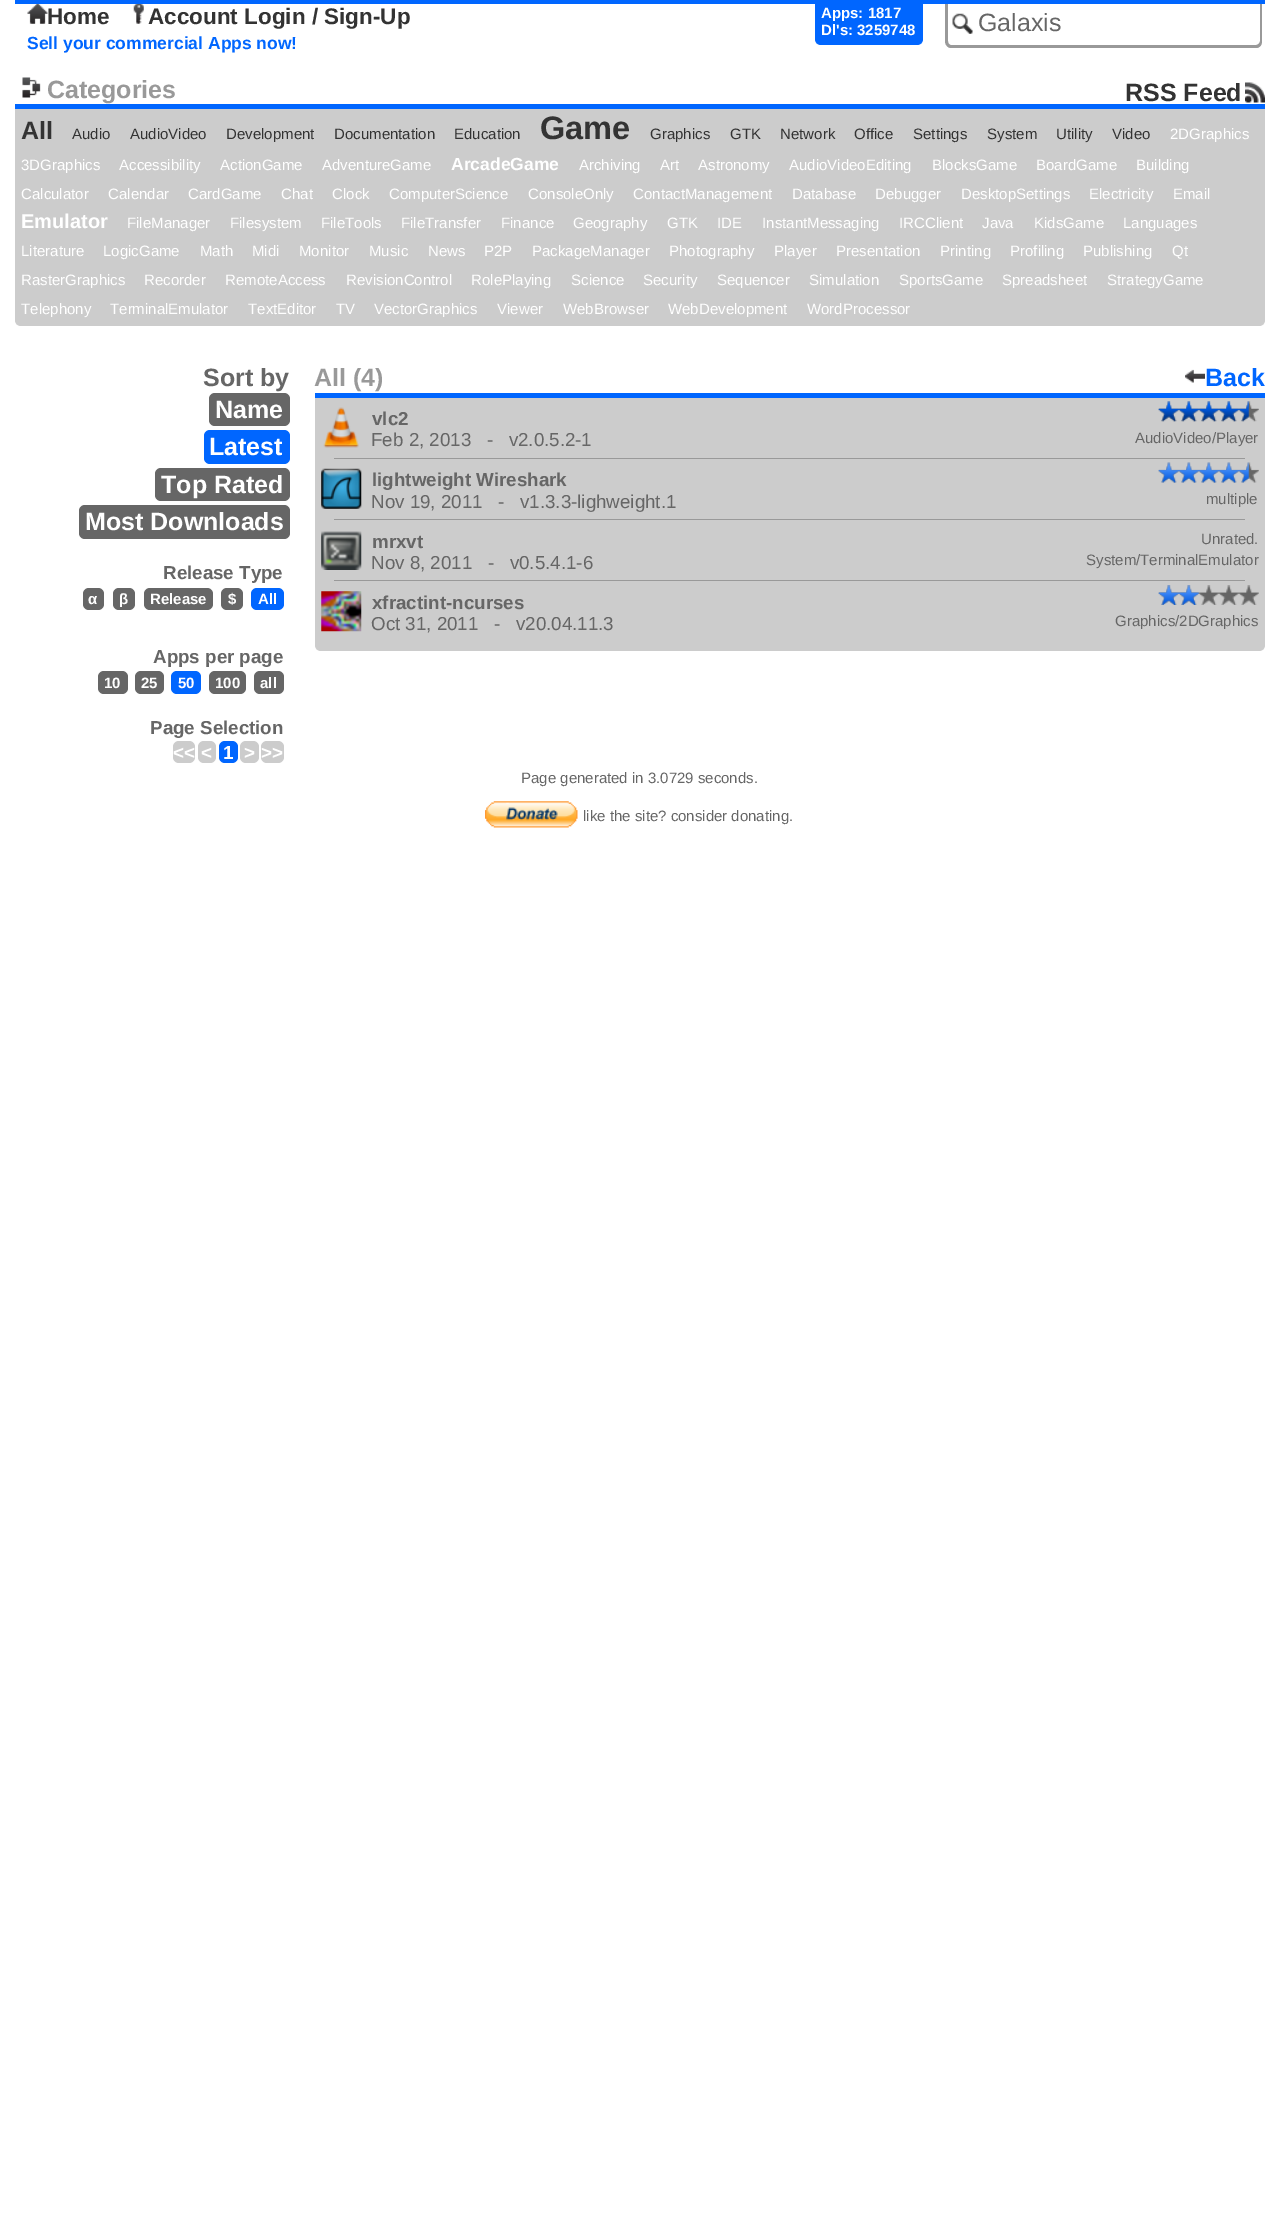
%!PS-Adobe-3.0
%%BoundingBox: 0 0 1278 2236
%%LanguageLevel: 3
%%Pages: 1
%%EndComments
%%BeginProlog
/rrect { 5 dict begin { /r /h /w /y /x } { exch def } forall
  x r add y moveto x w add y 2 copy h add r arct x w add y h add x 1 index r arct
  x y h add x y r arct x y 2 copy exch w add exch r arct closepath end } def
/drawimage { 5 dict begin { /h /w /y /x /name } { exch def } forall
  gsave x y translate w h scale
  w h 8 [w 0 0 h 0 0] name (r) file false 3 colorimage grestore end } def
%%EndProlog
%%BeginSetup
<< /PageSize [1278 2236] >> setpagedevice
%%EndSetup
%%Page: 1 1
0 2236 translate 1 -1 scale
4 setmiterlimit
1 setgray
0 0 1278 2236 rectfill
(images/3.raw) 952 13 21 21 drawimage
0.6 setgray
newpath 945 1 moveto 1262 1 lineto 1262 41 lineto 1262 45 1260 48 1256 48 curveto 951 48 lineto 948 48 945 45 945 41 curveto closepath 948 1 moveto 1260 1 lineto 1260 41 lineto 1260 43 1258 45 1256 45 curveto 951 45 lineto 949 45 948 43 948 41 curveto closepath eofill
0 0.4 1 setrgbcolor
15 0 1250 4 rectfill
(images/1.raw) 27 4 21 20 drawimage
(images/2.raw) 133 4 11 20 drawimage
newpath 815 4 moveto 923 4 lineto 923 39 lineto 923 42.5 920.5 45 917 45 curveto 821 45 lineto 817.5 45 815 42.5 815 39 curveto closepath fill
0.8 setgray
newpath 15 75 moveto 1265 75 lineto 1265 320 lineto 1265 323.5 1262.5 326 1259 326 curveto 21 326 lineto 17.5 326 15 323.5 15 320 curveto closepath fill
1 setgray
15 75 1250 29 rectfill
0 0.4 1 setrgbcolor
15 104 1250 5 rectfill
(images/4.raw) 22 77 19 21 drawimage
(images/5.raw) 1245 82 20 21 drawimage
0.4 setgray
209 393 81 33 6 rrect fill
0 0.4 1 setrgbcolor
204 430 86 34 6 rrect fill
0.4 setgray
155 468 135 33 6 rrect fill
79 505 211 34 6 rrect fill
83 588 21 22 6 rrect fill
113 588 22 22 6 rrect fill
144 588 69 22 6 rrect fill
221 588 22 22 6 rrect fill
0 0.4 1 setrgbcolor
251 588 33 22 6 rrect fill
0.4 setgray
98 671 30 23 6 rrect fill
135 671 29 23 6 rrect fill
0 0.4 1 setrgbcolor
171 671 30 23 6 rrect fill
0.4 setgray
209 671 37 23 6 rrect fill
254 671 30 23 6 rrect fill
0.8 setgray
173 741 22 22 6 rrect fill
198 741 18 22 6 rrect fill
0 0.4 1 setrgbcolor
219 741 19 22 6 rrect fill
0.8 setgray
240 741 19 22 6 rrect fill
261 741 23 22 6 rrect fill
0 0.4 1 setrgbcolor
315 393 950 5 rectfill
(images/6.raw) 1185 369 20 14 drawimage
0.8 setgray
315 398 950 243 rectfill
(images/7.raw) 323 407 36 41 drawimage
(images/8.raw) 1158 401 101 21 drawimage
(images/9.raw) 1158 401 91 21 drawimage
0.6 setgray
334 458 911 1 rectfill
(images/10.raw) 321 468 41 41 drawimage
(images/11.raw) 1158 462 101 21 drawimage
(images/12.raw) 1158 462 91 21 drawimage
334 519 911 1 rectfill
(images/13.raw) 321 531 41 39 drawimage
334 580 911 1 rectfill
(images/14.raw) 321 591 41 41 drawimage
(images/15.raw) 1158 585 101 20 drawimage
(images/16.raw) 1158 585 41 20 drawimage
0.8 setgray
newpath 315 641 moveto 1265 641 lineto 1265 645 lineto 1265 648.5 1262.5 651 1259 651 curveto 321 651 lineto 317.5 651 315 648.5 315 645 curveto closepath fill
(images/17.raw) 485 801 93 27 drawimage
/LiberationSans-Bold [22.5 0 0 -22.5 0 0] selectfont
0.2 setgray
47 24 moveto (Home) show
148 24 moveto (Account Login / Sign-Up) show
/LiberationSans-Bold [15 0 0 -15 0 0] selectfont
1 setgray
821 18 moveto (Apps: 1817) show
821 35 moveto (Dl's: 3259748) show
/LiberationSans-Regular [25 0 0 -25 0 0] selectfont
0.4 setgray
978 31 moveto (Galaxis) show
/LiberationSans-Bold [17.5 0 0 -17.5 0 0] selectfont
0 0.4 1 setrgbcolor
27 49 moveto (Sell your commercial Apps now!) show
/LiberationSans-Bold [25 0 0 -25 0 0] selectfont
0.6 setgray
47 98 moveto (Categories) show
0.2 setgray
1125 101 moveto (RSS Feed) show
21 139 moveto (All) show
/LiberationSans-Regular [15 0 0 -15 0 0] selectfont
72 139 moveto (Audio) show
130 139 moveto (AudioVideo) show
226 139 moveto (Development) show
334 139 moveto (Documentation) show
454 139 moveto (Education) show
/LiberationSans-Bold [32.5 0 0 -32.5 0 0] selectfont
540 139 moveto (Game) show
/LiberationSans-Regular [15 0 0 -15 0 0] selectfont
650 139 moveto (Graphics) show
730 139 moveto (GTK) show
780 139 moveto (Network) show
854 139 moveto (Office) show
913 139 moveto (Settings) show
987 139 moveto (System) show
1056 139 moveto (Utility) show
1112 139 moveto (Video) show
1 setgray
1170 139 moveto (2DGraphics) show
21 170 moveto (3DGraphics) show
119 170 moveto (Accessibility) show
220 170 moveto (ActionGame) show
322 170 moveto (AdventureGame) show
/LiberationSans-Bold [17.5 0 0 -17.5 0 0] selectfont
451 170 moveto (ArcadeGame) show
/LiberationSans-Regular [15 0 0 -15 0 0] selectfont
579 170 moveto (Archiving) show
660 170 moveto (Art) show
698 170 moveto (Astronomy) show
789 170 moveto (AudioVideoEditing) show
932 170 moveto (BlocksGame) show
1036 170 moveto (BoardGame) show
1136 170 moveto (Building) show
21 199 moveto (Calculator) show
108 199 moveto (Calendar) show
188 199 moveto (CardGame) show
281 199 moveto (Chat) show
332 199 moveto (Clock) show
389 199 moveto (ComputerScience) show
528 199 moveto (ConsoleOnly) show
633 199 moveto (ContactManagement) show
792 199 moveto (Database) show
875 199 moveto (Debugger) show
961 199 moveto (DesktopSettings) show
1089 199 moveto (Electricity) show
1173 199 moveto (Email) show
/LiberationSans-Bold [20 0 0 -20 0 0] selectfont
21 228 moveto (Emulator) show
/LiberationSans-Regular [15 0 0 -15 0 0] selectfont
127 228 moveto (FileManager) show
230 228 moveto (Filesystem) show
321 228 moveto (FileTools) show
401 228 moveto (FileTransfer) show
501 228 moveto (Finance) show
573 228 moveto (Geography) show
667 228 moveto (GTK) show
717 228 moveto (IDE) show
762 228 moveto (InstantMessaging) show
899 228 moveto (IRCClient) show
982 228 moveto (Java) show
1034 228 moveto (KidsGame) show
1123 228 moveto (Languages) show
21 256 moveto (Literature) show
103 256 moveto (LogicGame) show
200 256 moveto (Math) show
252 256 moveto (Midi) show
299 256 moveto (Monitor) show
369 256 moveto (Music) show
428 256 moveto (News) show
484 256 moveto (P2P) show
532 256 moveto (PackageManager) show
669 256 moveto (Photography) show
774 256 moveto (Player) show
836 256 moveto (Presentation) show
940 256 moveto (Printing) show
1010 256 moveto (Profiling) show
1083 256 moveto (Publishing) show
1172 256 moveto (Qt) show
21 285 moveto (RasterGraphics) show
144 285 moveto (Recorder) show
225 285 moveto (RemoteAccess) show
346 285 moveto (RevisionControl) show
471 285 moveto (RolePlaying) show
571 285 moveto (Science) show
643 285 moveto (Security) show
717 285 moveto (Sequencer) show
809 285 moveto (Simulation) show
899 285 moveto (SportsGame) show
1002 285 moveto (Spreadsheet) show
1107 285 moveto (StrategyGame) show
21 314 moveto (Telephony) show
110 314 moveto (TerminalEmulator) show
248 314 moveto (TextEditor) show
336 314 moveto (TV) show
374 314 moveto (VectorGraphics) show
497 314 moveto (Viewer) show
563 314 moveto (WebBrowser) show
668 314 moveto (WebDevelopment) show
807 314 moveto (WordProcessor) show
/LiberationSans-Bold [25 0 0 -25 0 0] selectfont
0.4 setgray
203 386 moveto (Sort by) show
1 setgray
215 418 moveto (Name) show
209 455 moveto (Latest) show
161 493 moveto (Top Rated) show
85 530 moveto (Most Downloads) show
/LiberationSans-Bold [18.75 0 0 -18.75 0 0] selectfont
0.4 setgray
163 579 moveto (Release Type) show
/LiberationSans-Bold [15 0 0 -15 0 0] selectfont
1 setgray
88 604 moveto (α) show
119 604 moveto (β) show
150 604 moveto (Release) show
228 604 moveto ($) show
258 604 moveto (All) show
/LiberationSans-Bold [18.75 0 0 -18.75 0 0] selectfont
0.4 setgray
153 663 moveto (Apps per page) show
/LiberationSans-Bold [15 0 0 -15 0 0] selectfont
1 setgray
104 688 moveto (10) show
141 688 moveto (25) show
178 688 moveto (50) show
215 688 moveto (100) show
260 688 moveto (all) show
/LiberationSans-Bold [18.75 0 0 -18.75 0 0] selectfont
0.4 setgray
150 734 moveto (Page Selection) show
1 setgray
173 759 moveto (<<) show
201 759 moveto (<) show
223 759 moveto (1) show
244 759 moveto (>) show
261 759 moveto (>>) show
/LiberationSans-Bold [25 0 0 -25 0 0] selectfont
0.6 setgray
314 386 moveto (All \(4\)) show
0 0.4 1 setrgbcolor
1205 386 moveto (Back) show
/LiberationSans-Bold [18.75 0 0 -18.75 0 0] selectfont
0.4 setgray
372 425 moveto (vlc2) show
/LiberationSans-Regular [18.75 0 0 -18.75 0 0] selectfont
371 446 moveto (Feb 2, 2013   -   v2.0.5.2-1) show
/LiberationSans-Regular [15 0 0 -15 0 0] selectfont
1135 443 moveto (AudioVideo/Player) show
/LiberationSans-Bold [18.75 0 0 -18.75 0 0] selectfont
372 486 moveto (lightweight Wireshark) show
/LiberationSans-Regular [18.75 0 0 -18.75 0 0] selectfont
371 508 moveto (Nov 19, 2011   -   v1.3.3-lighweight.1) show
/LiberationSans-Regular [15 0 0 -15 0 0] selectfont
1206 504 moveto (multiple) show
/LiberationSans-Bold [18.75 0 0 -18.75 0 0] selectfont
372 548 moveto (mrxvt) show
/LiberationSans-Regular [15 0 0 -15 0 0] selectfont
1201 544 moveto (Unrated.) show
/LiberationSans-Regular [18.75 0 0 -18.75 0 0] selectfont
371 569 moveto (Nov 8, 2011   -   v0.5.4.1-6) show
/LiberationSans-Regular [15 0 0 -15 0 0] selectfont
1086 565 moveto (System/TerminalEmulator) show
/LiberationSans-Bold [18.75 0 0 -18.75 0 0] selectfont
372 609 moveto (xfractint-ncurses) show
/LiberationSans-Regular [18.75 0 0 -18.75 0 0] selectfont
371 630 moveto (Oct 31, 2011   -   v20.04.11.3) show
/LiberationSans-Regular [15 0 0 -15 0 0] selectfont
1115 626 moveto (Graphics/2DGraphics) show
521 783 moveto (Page generated in 3.0729 seconds.) show
583 821 moveto (like the site? consider donating.) show
showpage
%%EOF
